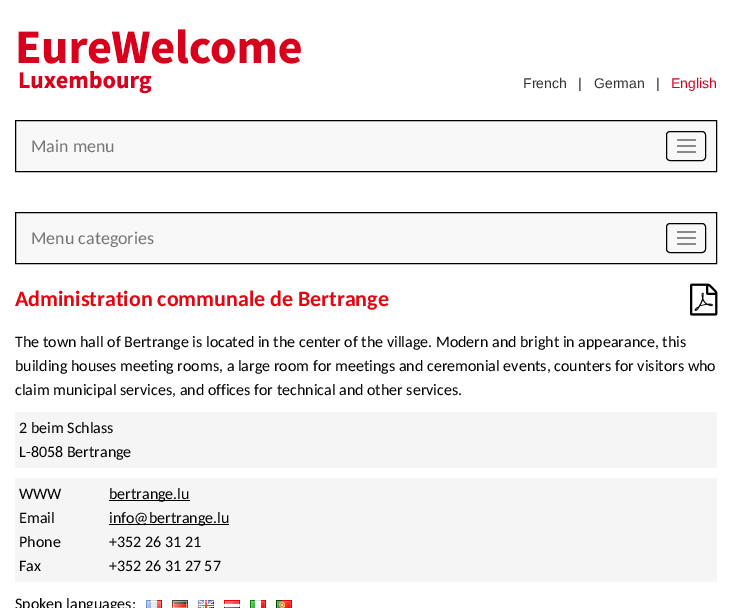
%!PS-Adobe-3.0
%%BoundingBox: 0 0 732 608
%%LanguageLevel: 3
%%Pages: 1
%%EndComments
%%BeginProlog
/rrect { 5 dict begin { /r /h /w /y /x } { exch def } forall
  x r add y moveto x w add y 2 copy h add r arct x w add y h add x 1 index r arct
  x y h add x y r arct x y 2 copy exch w add exch r arct closepath end } def
/drawimage { 5 dict begin { /h /w /y /x /name } { exch def } forall
  gsave x y translate w h scale
  w h 8 [w 0 0 h 0 0] name (r) file false 3 colorimage grestore end } def
%%EndProlog
%%BeginSetup
<< /PageSize [732 608] >> setpagedevice
%%EndSetup
%%Page: 1 1
0 608 translate 1 -1 scale
4 setmiterlimit
1 setgray
0 0 732 608 rectfill
(images/1.raw) 18 29 283 65 drawimage
0.973 setgray
newpath 15.5 120.5 moveto 716.5 120.5 lineto 716.5 171.5 lineto 15.5 171.5 lineto closepath gsave fill grestore
0 setgray
stroke
666.5 131.5 39 29 3.5 rrect stroke
0.533 setgray
677 139 19 2 1 rrect fill
677 145 19 2 1 rrect fill
677 151 19 2 1 rrect fill
0.973 setgray
newpath 15.5 212.5 moveto 716.5 212.5 lineto 716.5 263.5 lineto 15.5 263.5 lineto closepath gsave fill grestore
0 setgray
stroke
666.5 223.5 39 29 3.5 rrect stroke
0.533 setgray
677 231 19 2 1 rrect fill
677 237 19 2 1 rrect fill
677 243 19 2 1 rrect fill
(images/2.raw) 690 283 28 33 drawimage
0.961 setgray
15 412 702 56 rectfill
15 478 702 104 rectfill
0 setgray
109 500 81 1 rectfill
109 524 120 1 rectfill
(images/3.raw) 146 600 16 8 drawimage
(images/4.raw) 172 600 16 8 drawimage
(images/5.raw) 198 600 16 8 drawimage
(images/6.raw) 224 600 16 8 drawimage
(images/7.raw) 250 600 16 8 drawimage
(images/8.raw) 276 600 16 8 drawimage
/LiberationSans-Regular [14 0 0 -14 0 0] selectfont
0.2 setgray
523 88 moveto (French) show
578 88 moveto (|) show
594 88 moveto (German) show
656 88 moveto (|) show
0.843 0 0.114 setrgbcolor
671 88 moveto (English) show
/Carlito-Regular [18 0 0 -18 0 0] selectfont
0.467 setgray
31 152 moveto (Main menu) show
31 244 moveto (Menu categories) show
/Carlito-Bold [22 0 0 -22 0 0] selectfont
0.89 0.024 0.075 setrgbcolor
15 306 moveto (Administration communale de Bertrange) show
/Carlito-Regular [16 0 0 -16 0 0] selectfont
0 setgray
15 347 moveto (The town hall of Bertrange is located in the center of the village. Modern and bright in appearance, this) show
15 371 moveto (building houses meeting rooms, a large room for meetings and ceremonial events, counters for visitors who) show
15 395 moveto (claim municipal services, and offices for technical and other services.) show
19 433 moveto (2 beim Schlass) show
19 457 moveto (L-8058 Bertrange) show
19 499 moveto (WWW) show
109 499 moveto (bertrange.lu) show
19 523 moveto (Email) show
109 523 moveto (info@bertrange.lu) show
19 547 moveto (Phone) show
109 547 moveto (+352 26 31 21) show
19 571 moveto (Fax) show
109 571 moveto (+352 26 31 27 57) show
15 609 moveto (Spoken languages:) show
showpage
%%EOF
